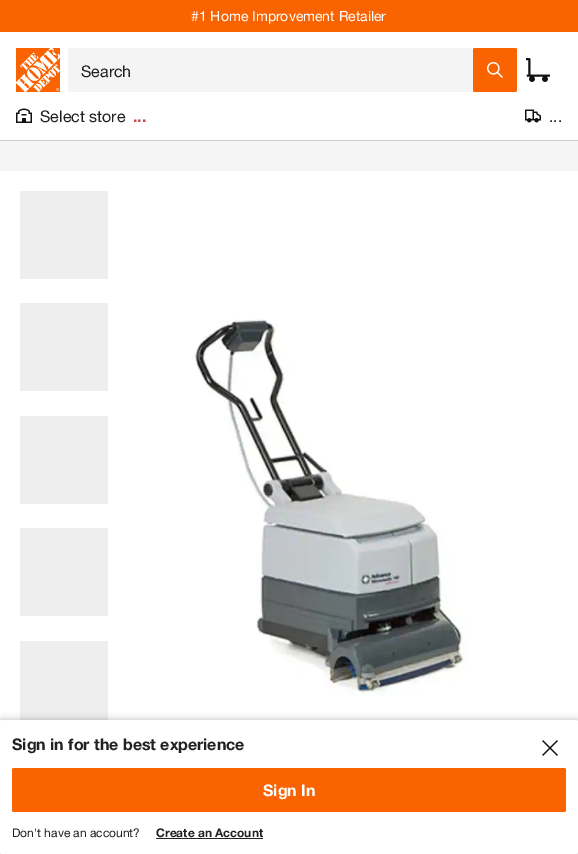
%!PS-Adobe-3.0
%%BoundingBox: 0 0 578 854
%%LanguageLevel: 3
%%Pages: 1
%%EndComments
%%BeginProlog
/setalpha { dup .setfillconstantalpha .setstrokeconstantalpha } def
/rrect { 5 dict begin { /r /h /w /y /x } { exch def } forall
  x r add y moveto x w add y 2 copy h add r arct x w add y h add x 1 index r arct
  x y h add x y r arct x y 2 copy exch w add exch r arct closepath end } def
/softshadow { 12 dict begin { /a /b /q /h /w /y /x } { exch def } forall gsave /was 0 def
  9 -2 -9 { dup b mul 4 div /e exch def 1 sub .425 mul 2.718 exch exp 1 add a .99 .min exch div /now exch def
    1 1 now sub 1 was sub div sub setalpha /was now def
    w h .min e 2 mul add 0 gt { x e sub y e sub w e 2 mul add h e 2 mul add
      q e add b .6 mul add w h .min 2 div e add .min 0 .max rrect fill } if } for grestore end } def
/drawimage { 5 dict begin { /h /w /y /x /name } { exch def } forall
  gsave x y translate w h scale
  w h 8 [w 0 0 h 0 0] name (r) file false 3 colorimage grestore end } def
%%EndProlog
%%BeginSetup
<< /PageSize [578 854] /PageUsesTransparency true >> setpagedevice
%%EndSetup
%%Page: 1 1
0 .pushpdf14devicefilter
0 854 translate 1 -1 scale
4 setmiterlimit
1 setgray
0 0 578 854 rectfill
0.976 0.388 0.008 setrgbcolor
0 0 578 32 rectfill
0.8 0.8 0.796 setrgbcolor
0 140 578 1 rectfill
(images/1.raw) 16 48 44 44 drawimage
0.957 setgray
68 48 449 44 2 rrect fill
0.976 0.388 0.008 setrgbcolor
473 48 44 44 2 rrect fill
(images/2.raw) 487 62 16 16 drawimage
(images/3.raw) 526 58 24 24 drawimage
(images/4.raw) 16 108 16 15 drawimage
(images/5.raw) 525 109 16 14 drawimage
0.933 setgray
20 641 88 79 rectfill
0 setgray
0 721 578 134 2 4 0.38 softshadow
1 setgray
0 720 578 134 2 rrect fill
(images/6.raw) 542 740 16 16 drawimage
0.976 0.388 0.008 setrgbcolor
12 768 554 44 2 rrect fill
0.129 0.129 0.125 setrgbcolor
156 838 107 1 rectfill
0.961 setgray
0 141 578 30 rectfill
0.933 setgray
20 191 88 88 rectfill
20 303 88 88 rectfill
20 416 88 88 rectfill
20 528 88 88 rectfill
(images/7.raw) 194 319 275 378 drawimage
/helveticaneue-Regular [14 0 0 -14 0 0] selectfont
1 setgray
191 21 moveto (#1 Home Improvement Retailer) show
/helveticaneue-Regular [16 0 0 -16 0 0] selectfont
0.129 0.129 0.125 setrgbcolor
81 77 moveto (Search) show
40 122 moveto (Select store) show
/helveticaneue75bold-Bold [16 0 0 -16 0 0] selectfont
0.776 0.298 0.298 setrgbcolor
133 122 moveto (...) show
/helveticaneue-Regular [16 0 0 -16 0 0] selectfont
0.129 0.129 0.125 setrgbcolor
549 122 moveto (...) show
/helveticaneue75bold-Bold [16 0 0 -16 0 0] selectfont
12 750 moveto (Sign in for the best experience) show
1 setgray
263 796 moveto (Sign In) show
/helveticaneue-Regular [12 0 0 -12 0 0] selectfont
0.129 0.129 0.125 setrgbcolor
12 837 moveto (Don't have an account?) show
/helveticaneue75bold-Bold [12 0 0 -12 0 0] selectfont
156 837 moveto (Create an Account) show
.poppdf14devicefilter showpage
%%EOF
